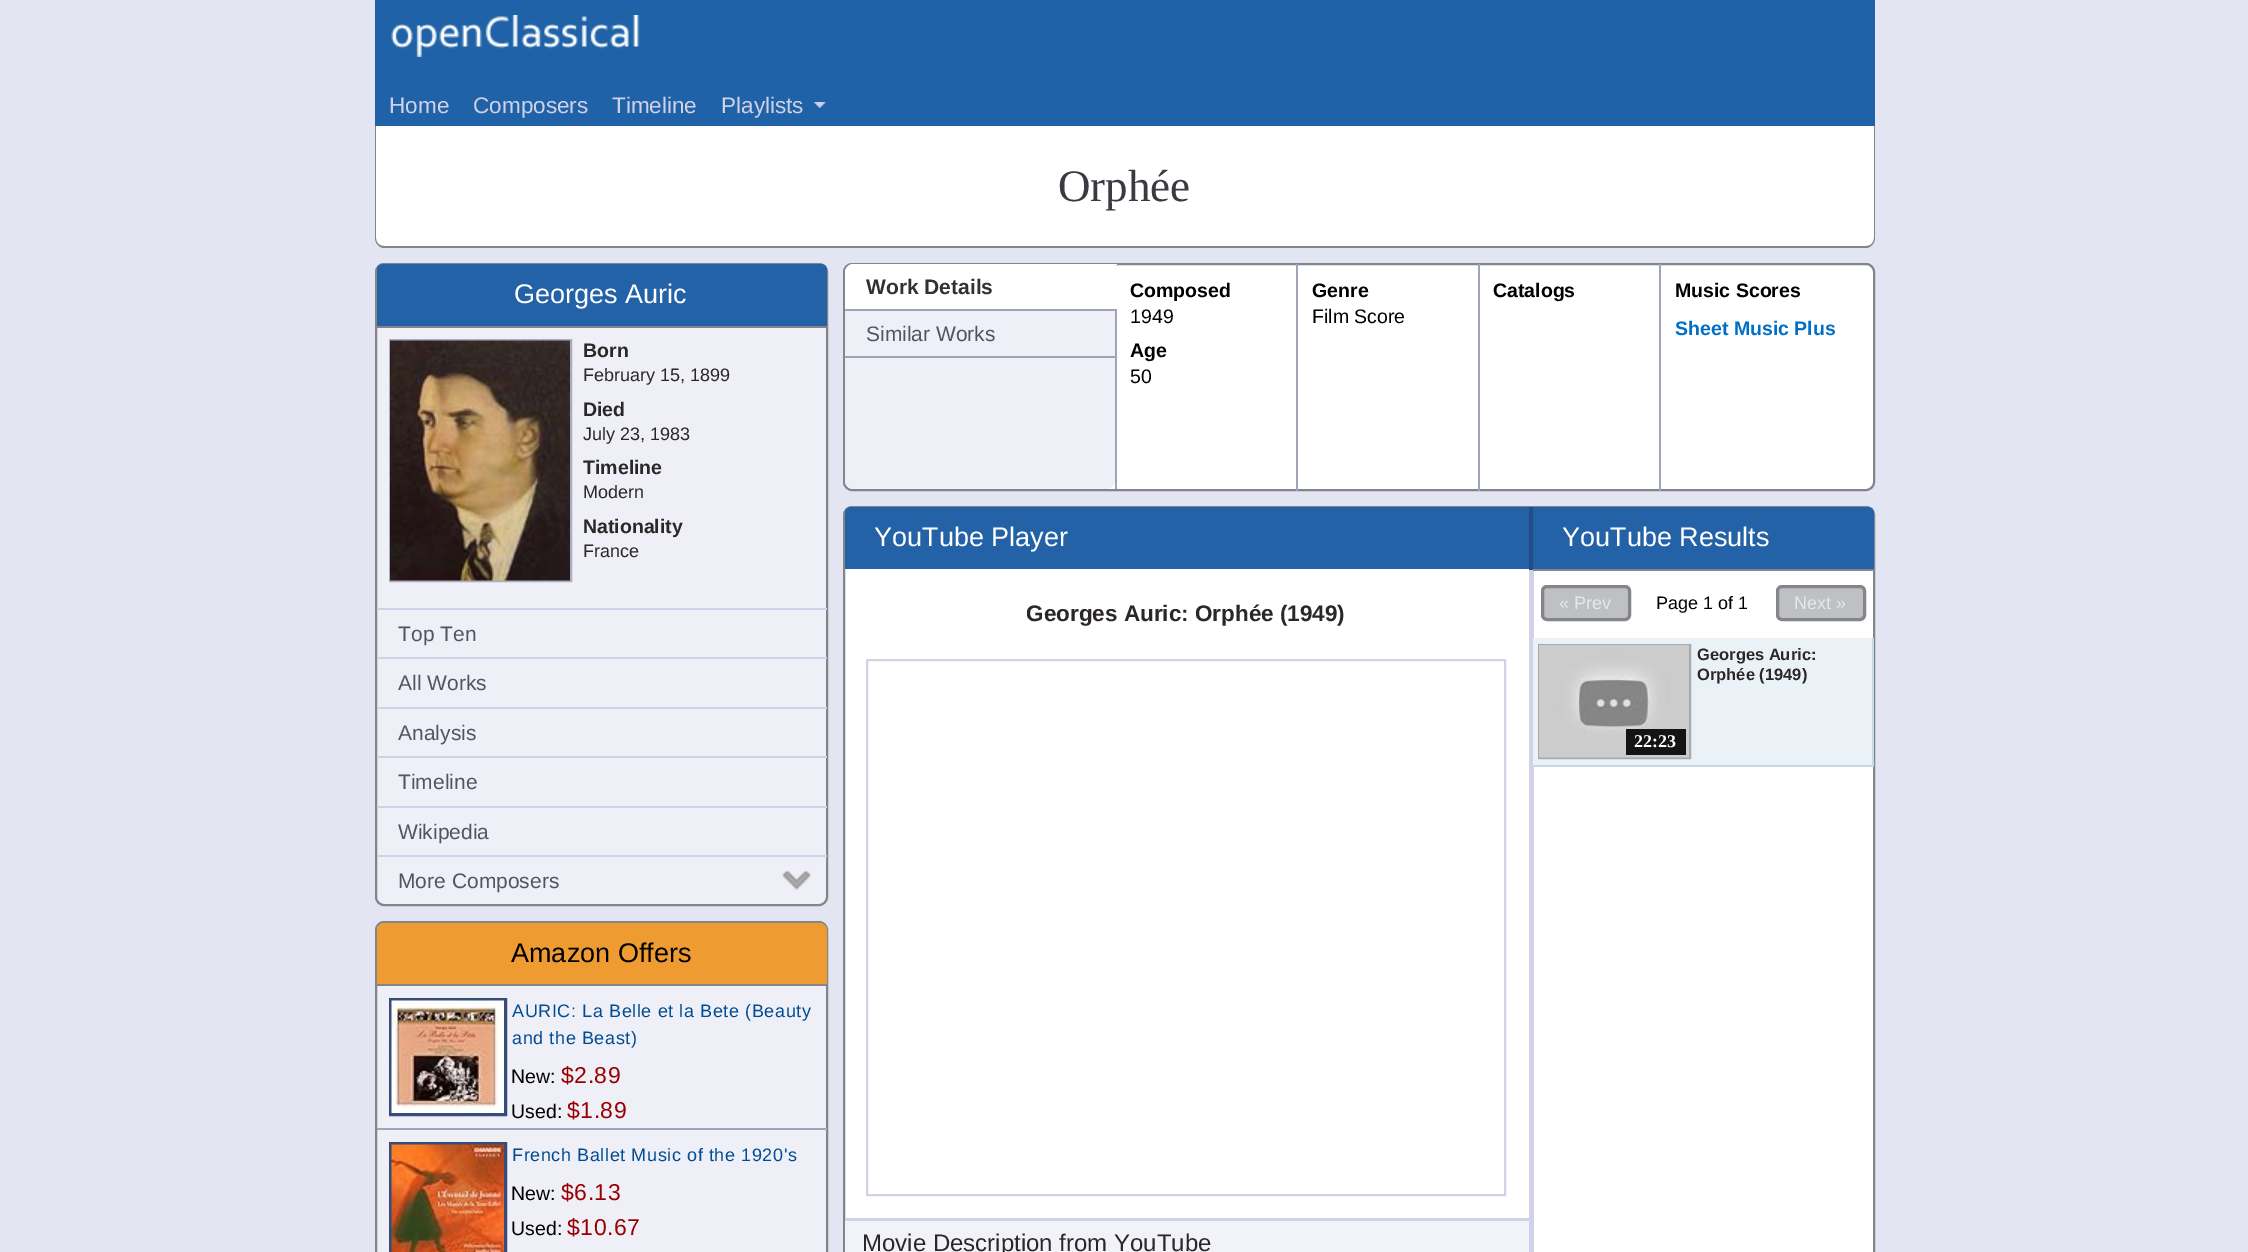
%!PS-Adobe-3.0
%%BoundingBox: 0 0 2248 1252
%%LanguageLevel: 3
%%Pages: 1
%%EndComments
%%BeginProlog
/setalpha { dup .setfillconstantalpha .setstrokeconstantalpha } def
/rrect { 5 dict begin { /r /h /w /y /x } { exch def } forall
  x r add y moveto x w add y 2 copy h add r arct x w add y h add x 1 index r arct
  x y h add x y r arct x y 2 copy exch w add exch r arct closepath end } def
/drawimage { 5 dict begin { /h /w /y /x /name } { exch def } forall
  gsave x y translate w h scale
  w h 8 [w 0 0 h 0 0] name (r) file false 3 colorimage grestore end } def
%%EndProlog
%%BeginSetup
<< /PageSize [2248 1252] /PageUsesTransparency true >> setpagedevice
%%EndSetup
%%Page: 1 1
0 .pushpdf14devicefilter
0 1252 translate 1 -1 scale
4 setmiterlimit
0.89 0.902 0.949 setrgbcolor
0 0 2248 1252 rectfill
0.125 0.384 0.655 setrgbcolor
375 0 1500 126 rectfill
(images/1.raw) 391 15 249 42 drawimage
(images/2.raw) 814 102 12 6 drawimage
1 setgray
newpath 375 126 moveto 1875 126 lineto 1875 239 lineto 1875 244 1871 248 1866 248 curveto 384 248 lineto 379 248 375 244 375 239 curveto closepath fill
0.518 0.518 0.545 setrgbcolor
newpath 375 126 moveto 1875 126 lineto 1875 238 lineto 1875 243 1871 248 1866 248 curveto 384 248 lineto 379 248 375 243 375 238 curveto closepath 376 126 moveto 1874 126 lineto 1874 238 lineto 1874 243 1870 246 1866 246 curveto 384 246 lineto 380 246 376 243 376 238 curveto closepath eofill
0.937 0.937 0.969 setrgbcolor
376 264 451 641 8 rrect gsave fill grestore
0.518 0.518 0.545 setrgbcolor
2 setlinewidth
stroke
0.141 0.384 0.655 setrgbcolor
newpath 383 264 moveto 821 264 lineto 824.5 264 827 266.5 827 270 curveto 827 327 lineto 377 327 lineto 377 270 lineto 377 266.5 379.5 264 383 264 curveto closepath fill
0.518 0.518 0.545 setrgbcolor
377 326 450 2 rectfill
0.671 0.678 0.745 setrgbcolor
390 340 181 241 rectstroke
(images/3.raw) 390 340 180 241 drawimage
0.812 0.82 0.914 setrgbcolor
377 608 450 2 rectfill
377 657 450 2 rectfill
377 707 450 2 rectfill
377 756 450 2 rectfill
377 806 450 2 rectfill
(images/4.raw) 782 870 29 20 drawimage
377 855 450 2 rectfill
0.937 0.937 0.969 setrgbcolor
376 922 451 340 8 rrect gsave fill grestore
0.518 0.518 0.545 setrgbcolor
stroke
0.933 0.608 0.192 setrgbcolor
newpath 385 923 moveto 819 923 lineto 823.5 923 827 926.5 827 931 curveto 827 986 lineto 377 986 lineto 377 931 lineto 377 926.5 380.5 923 385 923 curveto closepath fill
0.518 0.518 0.545 setrgbcolor
377 984 450 2 rectfill
0.635 0.639 0.725 setrgbcolor
377 1128 450 2 rectfill
0.212 0.298 0.475 setrgbcolor
3 setlinewidth
390.5 999.5 115 115 rectstroke
(images/5.raw) 391 1000 113 113 drawimage
390.5 1143.5 115 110 rectstroke
(images/6.raw) 391 1144 113 108 drawimage
1 setgray
844 264 1030 226 8 rrect gsave fill grestore
0.518 0.518 0.545 setrgbcolor
2 setlinewidth
stroke
0.937 0.937 0.969 setrgbcolor
845 264 270 225 9 rrect fill
1 setgray
newpath 854 264 moveto 1115 264 lineto 1115 311 lineto 845 311 lineto 845 273 lineto 845 268 849 264 854 264 curveto closepath fill
0.635 0.639 0.725 setrgbcolor
845 309 270 2 rectfill
845 356 270 2 rectfill
1115 309 2 180 rectfill
1 setgray
1115 264 2 1 rectfill
0.635 0.639 0.725 setrgbcolor
1296 264 2 227 rectfill
1478 264 2 227 rectfill
1659 264 2 227 rectfill
1 setgray
844 507 1030 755 8 rrect gsave fill grestore
0.518 0.518 0.545 setrgbcolor
stroke
0.141 0.384 0.655 setrgbcolor
newpath 851 507 moveto 1529 507 lineto 1529 569 lineto 845 569 lineto 845 513 lineto 845 509.5 847.5 507 851 507 curveto closepath fill
0.82 0.824 0.91 setrgbcolor
867 660 638 535 rectstroke
0.949 0.949 0.976 setrgbcolor
845 1221 684 31 rectfill
0.82 0.824 0.91 setrgbcolor
845 1218 684 3 rectfill
1529 570 5 682 rectfill
0.129 0.306 0.525 setrgbcolor
1529 507 4 63 rectfill
0.141 0.384 0.655 setrgbcolor
newpath 1533 507 moveto 1868 507 lineto 1871.5 507 1874 509.5 1874 513 curveto 1874 570 lineto 1533 570 lineto closepath fill
0.518 0.518 0.545 setrgbcolor
1533 569 341 2 rectfill
0.745 0.753 0.761 setrgbcolor
1542.5 586.5 87 33 4.5 rrect gsave fill grestore
0.518 0.518 0.545 setrgbcolor
3 setlinewidth
stroke
0.745 0.753 0.761 setrgbcolor
1777.5 586.5 87 33 4.5 rrect gsave fill grestore
0.518 0.518 0.545 setrgbcolor
stroke
0.922 0.949 0.969 setrgbcolor
1533 638 339 127 rectfill
0.78 0.851 0.902 setrgbcolor
1872 638 2 129 rectfill
1533 765 341 2 rectfill
0.667 setgray
2 setlinewidth
1539 645 151 113 rectstroke
(images/7.raw) 1539 645 150 113 drawimage
0.9 setalpha
0 setgray
1626 729 60 26 rectfill
/LiberationSans-Regular [22.5 0 0 -22.5 0 0] selectfont
1 setalpha
0.812 0.82 0.914 setrgbcolor
389 113 moveto (Home) show
473 113 moveto (Composers) show
612 113 moveto (Timeline) show
721 113 moveto (Playlists) show
/LiberationSerif-Regular [45 0 0 -45 0 0] selectfont
0.231 0.227 0.259 setrgbcolor
1058 201 moveto (Orphée) show
/LiberationSans-Regular [27 0 0 -27 0 0] selectfont
1 setgray
514 303 moveto (Georges Auric) show
/LiberationSans-Bold [19.5 0 0 -19.5 0 0] selectfont
0.169 0.153 0.157 setrgbcolor
583 357 moveto (Born) show
/LiberationSans-Regular [18 0 0 -18 0 0] selectfont
583 381 moveto (February 15, 1899) show
/LiberationSans-Bold [19.5 0 0 -19.5 0 0] selectfont
583 416 moveto (Died) show
/LiberationSans-Regular [18 0 0 -18 0 0] selectfont
583 440 moveto (July 23, 1983) show
/LiberationSans-Bold [19.5 0 0 -19.5 0 0] selectfont
583 474 moveto (Timeline) show
/LiberationSans-Regular [18 0 0 -18 0 0] selectfont
583 498 moveto (Modern) show
/LiberationSans-Bold [19.5 0 0 -19.5 0 0] selectfont
583 533 moveto (Nationality) show
/LiberationSans-Regular [18 0 0 -18 0 0] selectfont
583 557 moveto (France) show
/LiberationSans-Regular [21 0 0 -21 0 0] selectfont
0.31 0.337 0.38 setrgbcolor
398 641 moveto (Top Ten) show
398 690 moveto (All Works) show
398 740 moveto (Analysis) show
398 789 moveto (Timeline) show
398 839 moveto (Wikipedia) show
398 888 moveto (More Composers) show
/LiberationSans-Regular [27 0 0 -27 0 0] selectfont
0 setgray
511 962 moveto (Amazon Offers) show
/LiberationSans-Regular [18 0 0 -18 0 0] selectfont
0 0.294 0.569 setrgbcolor
512 1017 moveto 0.6 0 (AURIC: La Belle et la Bete \(Beauty) ashow
512 1044 moveto 0.6 0 (and the Beast\)) ashow
/LiberationSans-Regular [19.5 0 0 -19.5 0 0] selectfont
0 setgray
511 1083 moveto (New:) show
/LiberationSans-Regular [23 0 0 -23 0 0] selectfont
0.6 0 0 setrgbcolor
561 1083 moveto 0.5 0 ($2.89) ashow
/LiberationSans-Regular [19.5 0 0 -19.5 0 0] selectfont
0 setgray
511 1118 moveto (Used:) show
/LiberationSans-Regular [23 0 0 -23 0 0] selectfont
0.6 0 0 setrgbcolor
567 1118 moveto 0.5 0 ($1.89) ashow
/LiberationSans-Regular [18 0 0 -18 0 0] selectfont
0 0.294 0.569 setrgbcolor
512 1161 moveto 0.6 0 (French Ballet Music of the 1920's) ashow
/LiberationSans-Regular [19.5 0 0 -19.5 0 0] selectfont
0 setgray
511 1200 moveto (New:) show
/LiberationSans-Regular [23 0 0 -23 0 0] selectfont
0.6 0 0 setrgbcolor
561 1200 moveto 0.5 0 ($6.13) ashow
/LiberationSans-Regular [19.5 0 0 -19.5 0 0] selectfont
0 setgray
511 1235 moveto (Used:) show
/LiberationSans-Regular [23 0 0 -23 0 0] selectfont
0.6 0 0 setrgbcolor
567 1235 moveto 0.5 0 ($10.67) ashow
/LiberationSans-Bold [21 0 0 -21 0 0] selectfont
0.192 setgray
866 294 moveto (Work Details) show
/LiberationSans-Regular [21 0 0 -21 0 0] selectfont
0.31 0.337 0.38 setrgbcolor
866 341 moveto (Similar Works) show
/LiberationSans-Bold [19.5 0 0 -19.5 0 0] selectfont
0 setgray
1130 297 moveto (Composed) show
/LiberationSans-Regular [19.5 0 0 -19.5 0 0] selectfont
1130 323 moveto (1949) show
/LiberationSans-Bold [19.5 0 0 -19.5 0 0] selectfont
1130 357 moveto (Age) show
/LiberationSans-Regular [19.5 0 0 -19.5 0 0] selectfont
1130 383 moveto (50) show
/LiberationSans-Bold [19.5 0 0 -19.5 0 0] selectfont
1312 297 moveto (Genre) show
/LiberationSans-Regular [19.5 0 0 -19.5 0 0] selectfont
1312 323 moveto (Film Score) show
/LiberationSans-Bold [19.5 0 0 -19.5 0 0] selectfont
1493 297 moveto (Catalogs) show
1675 297 moveto (Music Scores) show
0 0.435 0.78 setrgbcolor
1675 335 moveto (Sheet Music Plus) show
/LiberationSans-Regular [27 0 0 -27 0 0] selectfont
1 setgray
874 546 moveto (YouTube Player) show
/LiberationSans-Bold [22.5 0 0 -22.5 0 0] selectfont
0.169 0.153 0.157 setrgbcolor
1026 621 moveto (Georges Auric: Orphée \(1949\)) show
/LiberationSans-Regular [24 0 0 -24 0 0] selectfont
862 1251 moveto (Movie Description from YouTube) show
/LiberationSans-Regular [27 0 0 -27 0 0] selectfont
1 setgray
1562 546 moveto (YouTube Results) show
/LiberationSans-Regular [18 0 0 -18 0 0] selectfont
0.902 0.906 0.91 setrgbcolor
1559 609 moveto (« Prev) show
0 setgray
1656 609 moveto (Page 1 of 1) show
0.902 0.906 0.91 setrgbcolor
1794 609 moveto (Next ») show
/LiberationSans-Bold [16.5 0 0 -16.5 0 0] selectfont
0.169 0.153 0.157 setrgbcolor
1697 660 moveto (Georges Auric:) show
1697 680 moveto (Orphée \(1949\)) show
/LiberationSerif-Bold [18 0 0 -18 0 0] selectfont
1 setgray
1634 747 moveto (22:23) show
.poppdf14devicefilter showpage
%%EOF
